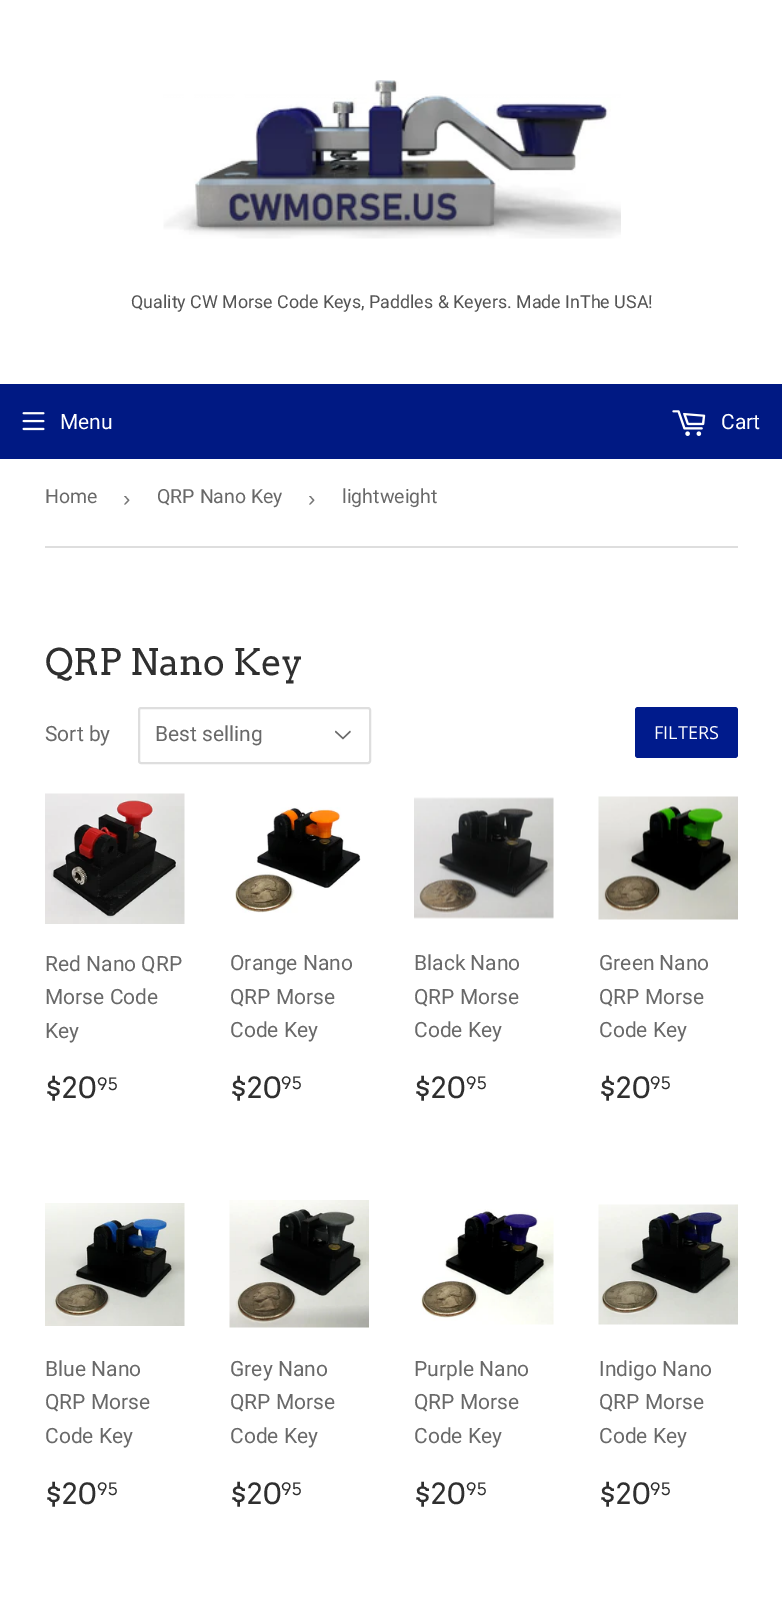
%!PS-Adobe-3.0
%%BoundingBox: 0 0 782 1611
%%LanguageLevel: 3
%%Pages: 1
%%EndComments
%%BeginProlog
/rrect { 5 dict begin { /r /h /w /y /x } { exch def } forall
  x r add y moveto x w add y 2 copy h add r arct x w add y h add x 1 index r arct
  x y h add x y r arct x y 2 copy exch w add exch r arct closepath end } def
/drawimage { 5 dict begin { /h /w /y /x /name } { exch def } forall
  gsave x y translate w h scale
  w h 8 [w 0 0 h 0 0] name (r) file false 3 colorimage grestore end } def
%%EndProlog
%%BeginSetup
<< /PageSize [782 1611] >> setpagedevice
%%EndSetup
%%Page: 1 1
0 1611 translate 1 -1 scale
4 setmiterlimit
1 setgray
0 0 782 1611 rectfill
(images/1.raw) 163 80 458 159 drawimage
0 0.098 0.514 setrgbcolor
0 384 782 75 rectfill
(images/2.raw) 22 412 23 19 drawimage
(images/3.raw) 672 410 34 26 drawimage
0.871 setgray
45 546 693 2 rectfill
(images/4.raw) 335 730 16 10 drawimage
2 setlinewidth
139 708 231 55 2 rrect stroke
0 0.106 0.549 setrgbcolor
635 707 103 51 3 rrect fill
(images/5.raw) 45 793 140 131 drawimage
(images/6.raw) 235 807 126 106 drawimage
(images/7.raw) 414 797 140 122 drawimage
(images/8.raw) 598 796 140 124 drawimage
(images/9.raw) 45 1203 140 123 drawimage
(images/10.raw) 229 1200 140 128 drawimage
(images/11.raw) 420 1209 134 116 drawimage
(images/12.raw) 598 1204 140 121 drawimage
/Roboto-Regular [17.85 0 0 -17.85 0 0] selectfont
0.329 setgray
131 308 moveto (Quality CW Morse Code Keys, Paddles & Keyers. Made InThe USA!) show
/Roboto-Regular [21 0 0 -21 0 0] selectfont
1 setgray
60 429 moveto (Menu) show
721 429 moveto (Cart) show
/Roboto-Regular [19.5 0 0 -19.5 0 0] selectfont
0.412 setgray
45 503 moveto (Home) show
/LiberationSans-Regular [22 0 0 -22 0 0] selectfont
0.463 setgray
123 506 moveto (›) show
/Roboto-Regular [19.5 0 0 -19.5 0 0] selectfont
0.412 setgray
157 503 moveto (QRP Nano Key) show
/LiberationSans-Regular [22 0 0 -22 0 0] selectfont
0.463 setgray
308 506 moveto (›) show
/Roboto-Regular [19.5 0 0 -19.5 0 0] selectfont
0.412 setgray
342 503 moveto (lightweight) show
/Arvo-Regular [36.5 0 0 -36.5 0 0] selectfont
0.184 setgray
45 675 moveto (QRP Nano Key) show
/Roboto-Regular [21 0 0 -21 0 0] selectfont
0.412 setgray
45 741 moveto (Sort by) show
155 741 moveto (Best selling) show
/OpenSans-Regular [18 0 0 -18 0 0] selectfont
1 setgray
654 739 moveto (FILTERS) show
/Roboto-Regular [21 0 0 -21 0 0] selectfont
0.412 setgray
45 971 moveto (Red Nano QRP) show
45 1004 moveto (Morse Code) show
45 1038 moveto (Key) show
/Arvo-Regular [29 0 0 -29 0 0] selectfont
0.184 setgray
45 1098 moveto ($20) show
/Arvo-Regular [17 0 0 -17 0 0] selectfont
97 1090 moveto (95) show
/Roboto-Regular [21 0 0 -21 0 0] selectfont
0.412 setgray
230 970 moveto (Orange Nano) show
230 1004 moveto (QRP Morse) show
230 1037 moveto (Code Key) show
/Arvo-Regular [29 0 0 -29 0 0] selectfont
0.184 setgray
230 1098 moveto ($20) show
/Arvo-Regular [17 0 0 -17 0 0] selectfont
281 1089 moveto (95) show
/Roboto-Regular [21 0 0 -21 0 0] selectfont
0.412 setgray
414 970 moveto (Black Nano) show
414 1004 moveto (QRP Morse) show
414 1037 moveto (Code Key) show
/Arvo-Regular [29 0 0 -29 0 0] selectfont
0.184 setgray
414 1098 moveto ($20) show
/Arvo-Regular [17 0 0 -17 0 0] selectfont
466 1089 moveto (95) show
/Roboto-Regular [21 0 0 -21 0 0] selectfont
0.412 setgray
599 970 moveto (Green Nano) show
599 1004 moveto (QRP Morse) show
599 1037 moveto (Code Key) show
/Arvo-Regular [29 0 0 -29 0 0] selectfont
0.184 setgray
599 1098 moveto ($20) show
/Arvo-Regular [17 0 0 -17 0 0] selectfont
650 1089 moveto (95) show
/Roboto-Regular [21 0 0 -21 0 0] selectfont
0.412 setgray
45 1376 moveto (Blue Nano) show
45 1409 moveto (QRP Morse) show
45 1443 moveto (Code Key) show
/Arvo-Regular [29 0 0 -29 0 0] selectfont
0.184 setgray
45 1504 moveto ($20) show
/Arvo-Regular [17 0 0 -17 0 0] selectfont
97 1495 moveto (95) show
/Roboto-Regular [21 0 0 -21 0 0] selectfont
0.412 setgray
230 1376 moveto (Grey Nano) show
230 1409 moveto (QRP Morse) show
230 1443 moveto (Code Key) show
/Arvo-Regular [29 0 0 -29 0 0] selectfont
0.184 setgray
230 1504 moveto ($20) show
/Arvo-Regular [17 0 0 -17 0 0] selectfont
281 1495 moveto (95) show
/Roboto-Regular [21 0 0 -21 0 0] selectfont
0.412 setgray
414 1376 moveto (Purple Nano) show
414 1409 moveto (QRP Morse) show
414 1443 moveto (Code Key) show
/Arvo-Regular [29 0 0 -29 0 0] selectfont
0.184 setgray
414 1504 moveto ($20) show
/Arvo-Regular [17 0 0 -17 0 0] selectfont
466 1495 moveto (95) show
/Roboto-Regular [21 0 0 -21 0 0] selectfont
0.412 setgray
599 1376 moveto (Indigo Nano) show
599 1409 moveto (QRP Morse) show
599 1443 moveto (Code Key) show
/Arvo-Regular [29 0 0 -29 0 0] selectfont
0.184 setgray
599 1504 moveto ($20) show
/Arvo-Regular [17 0 0 -17 0 0] selectfont
650 1495 moveto (95) show
showpage
%%EOF
